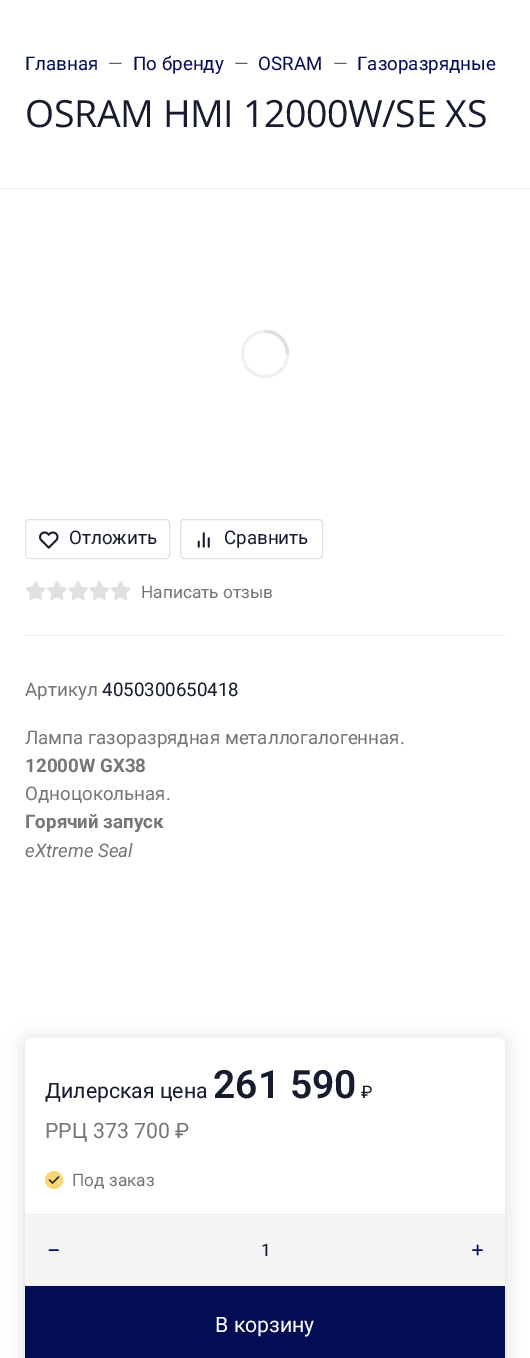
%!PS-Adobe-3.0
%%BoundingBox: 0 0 530 1358
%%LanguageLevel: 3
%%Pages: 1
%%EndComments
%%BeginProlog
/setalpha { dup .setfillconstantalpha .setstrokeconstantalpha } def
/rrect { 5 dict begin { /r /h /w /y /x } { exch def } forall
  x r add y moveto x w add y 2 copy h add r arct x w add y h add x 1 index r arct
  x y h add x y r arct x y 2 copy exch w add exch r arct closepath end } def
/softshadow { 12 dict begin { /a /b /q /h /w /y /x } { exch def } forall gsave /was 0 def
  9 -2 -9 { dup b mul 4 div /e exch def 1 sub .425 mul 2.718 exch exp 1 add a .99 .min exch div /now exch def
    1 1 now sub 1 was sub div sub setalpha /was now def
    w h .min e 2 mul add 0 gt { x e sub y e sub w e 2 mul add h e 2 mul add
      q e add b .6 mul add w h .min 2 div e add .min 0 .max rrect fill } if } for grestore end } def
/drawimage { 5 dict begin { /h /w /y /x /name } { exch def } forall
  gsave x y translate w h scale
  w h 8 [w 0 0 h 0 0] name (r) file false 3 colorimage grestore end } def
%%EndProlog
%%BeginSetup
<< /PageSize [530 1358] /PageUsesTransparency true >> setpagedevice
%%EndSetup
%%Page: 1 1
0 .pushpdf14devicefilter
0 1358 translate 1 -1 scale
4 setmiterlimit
1 setgray
0 0 530 1358 rectfill
0.933 setgray
0 188 530 1 rectfill
0.941 setgray
3.1 setlinewidth
newpath 265 354 22.5 0 360 arc closepath stroke
gsave
241 330 48 48 rectclip
0.878 setgray
newpath 287.5 354 moveto 287.5 341.5 277.5 331 265 331 curveto stroke
grestore
0.933 setgray
25 635 480 1 rectfill
0.878 setgray
1 setlinewidth
25.5 519.5 144 39 3.5 rrect stroke
(images/1.raw) 39 531 20 18 drawimage
180.5 519.5 142 39 3.5 rrect stroke
(images/2.raw) 197 532 13 16 drawimage
(images/3.raw) 25 581 21 19 drawimage
(images/4.raw) 47 581 20 19 drawimage
(images/5.raw) 68 581 20 19 drawimage
(images/6.raw) 89 581 21 19 drawimage
(images/3.raw) 110 581 21 19 drawimage
gsave
newpath 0 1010 moveto 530 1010 lineto 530 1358 lineto 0 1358 lineto closepath 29 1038 moveto 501 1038 lineto 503 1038 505 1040 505 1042 curveto 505 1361 lineto 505 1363 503 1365 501 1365 curveto 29 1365 lineto 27 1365 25 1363 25 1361 curveto 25 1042 lineto 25 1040 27 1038 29 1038 curveto closepath eoclip newpath
0.086 0.11 0.176 setrgbcolor
25 1041 480 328 4 10 0.15 softshadow
grestore
0.98 0.843 0.463 setrgbcolor
newpath 54 1180 9 0 360 arc closepath fill
0.129 setgray
1.4 setlinewidth
1 setlinecap
1 setlinejoin
newpath 58.5 1177 moveto 52.5 1183 lineto 49.5 1180 lineto stroke
0.933 setgray
25 1214 480 1 rectfill
25 1285 480 1 rectfill
0.961 setgray
25 1215 480 70 rectfill
0.012 0.051 0.325 setrgbcolor
1.6 setlinewidth
newpath 49.5 1250 moveto 58 1250 lineto stroke
newpath 477.5 1245.5 moveto 477.5 1254.5 lineto 473 1250 moveto 482 1250 lineto stroke
25 1286 480 72 rectfill
/Roboto-Regular [18.75 0 0 -18.75 0 0] selectfont
25 70 moveto (Главная) show
0.38 setgray
108 70 moveto (—) show
0.012 0.051 0.325 setrgbcolor
133 70 moveto (По бренду) show
0.38 setgray
234 70 moveto (—) show
0.012 0.051 0.325 setrgbcolor
258 70 moveto (OSRAM) show
0.38 setgray
333 70 moveto (—) show
0.012 0.051 0.325 setrgbcolor
357 70 moveto (Газоразрядные) show
/OpenSans-Regular [37.5 0 0 -37.5 0 0] selectfont
0.086 0.11 0.176 setrgbcolor
25 127 moveto -0.4 0 (OSRAM HMI 12000W/SE XS) ashow
/Roboto-Regular [18.75 0 0 -18.75 0 0] selectfont
69 544 moveto (Отложить) show
224 544 moveto (Сравнить) show
/Roboto-Regular [17.25 0 0 -17.25 0 0] selectfont
0.459 setgray
141 598 moveto (Написать отзыв) show
/Roboto-Regular [18.75 0 0 -18.75 0 0] selectfont
25 696 moveto (Артикул) show
0.086 0.11 0.176 setrgbcolor
102 696 moveto (4050300650418) show
0.459 setgray
25 744 moveto (Лампа газоразрядная металлогалогенная.) show
/Roboto-Bold [18.75 0 0 -18.75 0 0] selectfont
25 772 moveto (12000W GX38) show
/Roboto-Regular [18.75 0 0 -18.75 0 0] selectfont
25 800 moveto (Одноцокольная.) show
/Roboto-Bold [18.75 0 0 -18.75 0 0] selectfont
25 828 moveto (Горячий запуск) show
/Roboto-Italic [18.75 0 0 -18.75 0 0] selectfont
25 857 moveto (eXtreme Seal) show
/Roboto-Regular [21.25 0 0 -21.25 0 0] selectfont
0.086 0.11 0.176 setrgbcolor
45 1098 moveto (Дилерская цена) show
/Roboto-SemiBold [39 0 0 -39 0 0] selectfont
213 1098 moveto (261 590) show
/Roboto-Regular [17.25 0 0 -17.25 0 0] selectfont
361 1098 moveto (₽) show
/Roboto-Regular [21.25 0 0 -21.25 0 0] selectfont
0.459 setgray
45 1138 moveto (РРЦ 373 700 ₽) show
/Roboto-Regular [17.25 0 0 -17.25 0 0] selectfont
72 1186 moveto (Под заказ) show
0.086 0.11 0.176 setrgbcolor
261 1256 moveto (1) show
/Roboto-Regular [21.25 0 0 -21.25 0 0] selectfont
1 setgray
215 1332 moveto (В корзину) show
.poppdf14devicefilter showpage
%%EOF
